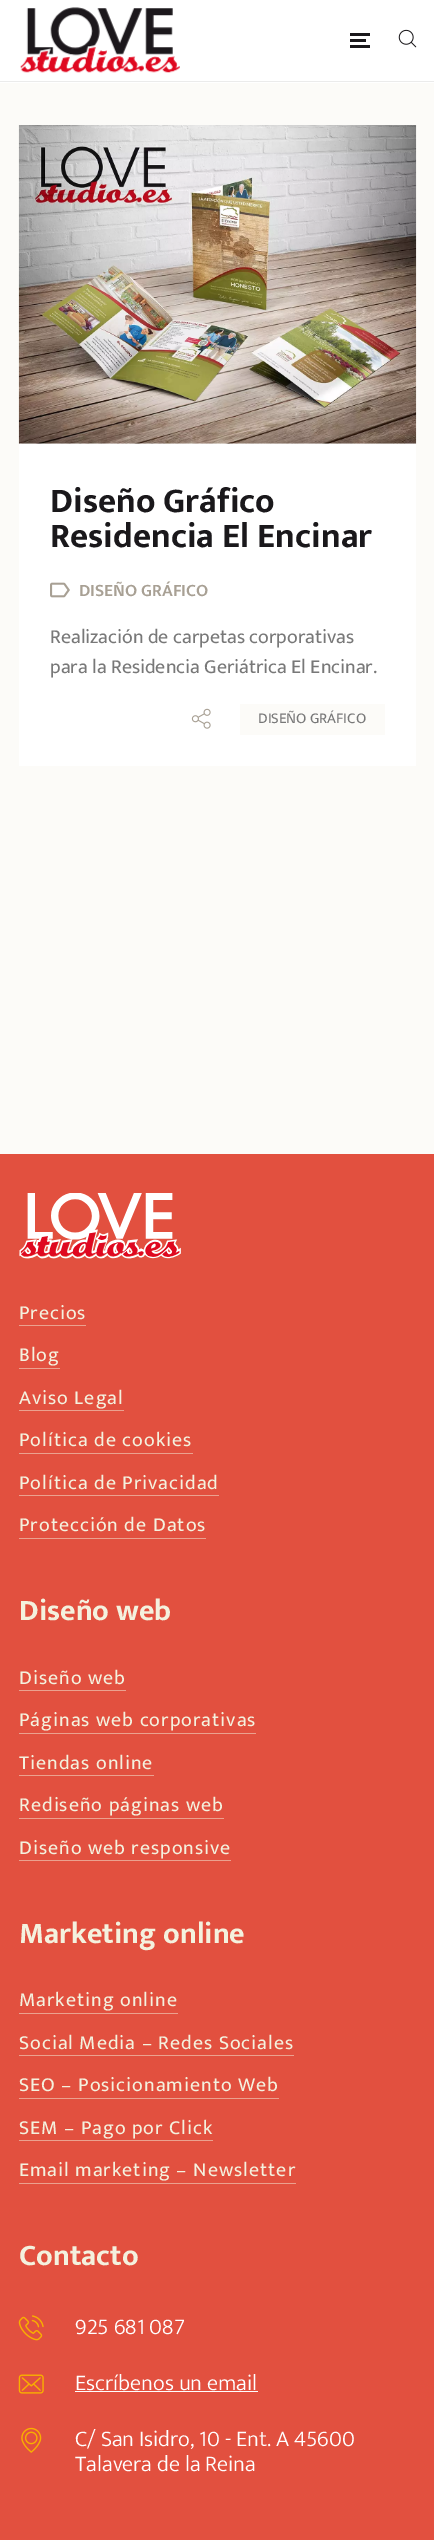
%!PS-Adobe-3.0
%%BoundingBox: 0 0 434 2540
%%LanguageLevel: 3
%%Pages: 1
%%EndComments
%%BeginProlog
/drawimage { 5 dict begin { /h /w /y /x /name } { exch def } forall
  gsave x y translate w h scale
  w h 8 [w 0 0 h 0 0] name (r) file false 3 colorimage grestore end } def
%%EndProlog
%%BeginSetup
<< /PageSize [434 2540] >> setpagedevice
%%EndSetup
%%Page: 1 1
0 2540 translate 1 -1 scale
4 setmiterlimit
0.988 0.984 0.973 setrgbcolor
0 0 434 2540 rectfill
1 setgray
0 0 434 83 rectfill
0.922 setgray
0 81 434 1 rectfill
(images/1.raw) 20 7 160 66 drawimage
0.102 0.094 0.106 setrgbcolor
350 33 20 3 rectfill
350 39 16 3 rectfill
350 45 20 3 rectfill
(images/2.raw) 398 29 19 19 drawimage
1 setgray
19 443 397 323 rectfill
(images/3.raw) 18 125 399 319 drawimage
(images/4.raw) 50 582 20 16 drawimage
(images/5.raw) 191 708 20 21 drawimage
0.988 0.984 0.973 setrgbcolor
240 704 145 31 rectfill
0.886 0.314 0.247 setrgbcolor
0 1154 434 1386 rectfill
(images/6.raw) 19 1193 162 66 drawimage
0.922 0.631 0.561 setrgbcolor
19 1325 67 1 rectfill
19 1368 41 1 rectfill
19 1410 105 1 rectfill
19 1453 174 1 rectfill
19 1495 200 1 rectfill
19 1538 187 1 rectfill
19 1690 107 1 rectfill
19 1733 237 1 rectfill
19 1775 135 1 rectfill
19 1818 205 1 rectfill
19 1860 212 1 rectfill
19 2013 159 1 rectfill
19 2055 275 1 rectfill
19 2098 260 1 rectfill
19 2140 194 1 rectfill
19 2183 277 1 rectfill
(images/7.raw) 18 2315 26 26 drawimage
(images/8.raw) 18 2374 26 20 drawimage
1 setgray
75 2391 183 1 rectfill
(images/9.raw) 21 2427 21 26 drawimage
/Mukta-Bold [35 0 0 -35 0 0] selectfont
0.102 0.094 0.106 setrgbcolor
50 512 moveto (Diseño Gráfico) show
50 547 moveto (Residencia El Encinar) show
/Mukta-SemiBold [17.5 0 0 -17.5 0 0] selectfont
0.659 0.627 0.58 setrgbcolor
79 596 moveto (DISEÑO GRÁFICO) show
/Mukta-Regular [20 0 0 -20 0 0] selectfont
0.471 setgray
50 643 moveto (Realización de carpetas corporativas) show
50 673 moveto (para la Residencia Geriátrica El Encinar.) show
/Mukta-Regular [15 0 0 -15 0 0] selectfont
258 723 moveto (DISEÑO GRÁFICO) show
/Mukta-Regular [20 0 0 -20 0 0] selectfont
0.957 0.945 0.871 setrgbcolor
19 1319 moveto 1 0 (Precios) ashow
19 1361 moveto 1 0 (Blog) ashow
19 1404 moveto 1 0 (Aviso Legal) ashow
19 1446 moveto 1 0 (Política de cookies) ashow
19 1489 moveto 1 0 (Política de Privacidad) ashow
19 1531 moveto 1 0 (Protección de Datos) ashow
/Mukta-Bold [30 0 0 -30 0 0] selectfont
19 1620 moveto (Diseño web) show
/Mukta-Regular [20 0 0 -20 0 0] selectfont
19 1684 moveto 1 0 (Diseño web) ashow
19 1726 moveto 1 0 (Páginas web corporativas) ashow
19 1769 moveto 1 0 (Tiendas online) ashow
19 1811 moveto 1 0 (Rediseño páginas web) ashow
19 1854 moveto 1 0 (Diseño web responsive) ashow
/Mukta-Bold [30 0 0 -30 0 0] selectfont
19 1943 moveto (Marketing online) show
/Mukta-Regular [20 0 0 -20 0 0] selectfont
19 2006 moveto 1 0 (Marketing online) ashow
19 2049 moveto 1 0 (Social Media – Redes Sociales) ashow
19 2091 moveto 1 0 (SEO – Posicionamiento Web) ashow
19 2134 moveto 1 0 (SEM – Pago por Click) ashow
19 2176 moveto 1 0 (Email marketing – Newsletter) ashow
/Mukta-Bold [30 0 0 -30 0 0] selectfont
19 2265 moveto (Contacto) show
/Mukta-Light [22.5 0 0 -22.5 0 0] selectfont
1 setgray
75 2334 moveto (925 681 087) show
75 2390 moveto (Escríbenos un email) show
75 2446 moveto (C/ San Isidro, 10 - Ent. A 45600) show
75 2471 moveto (Talavera de la Reina) show
showpage
%%EOF
